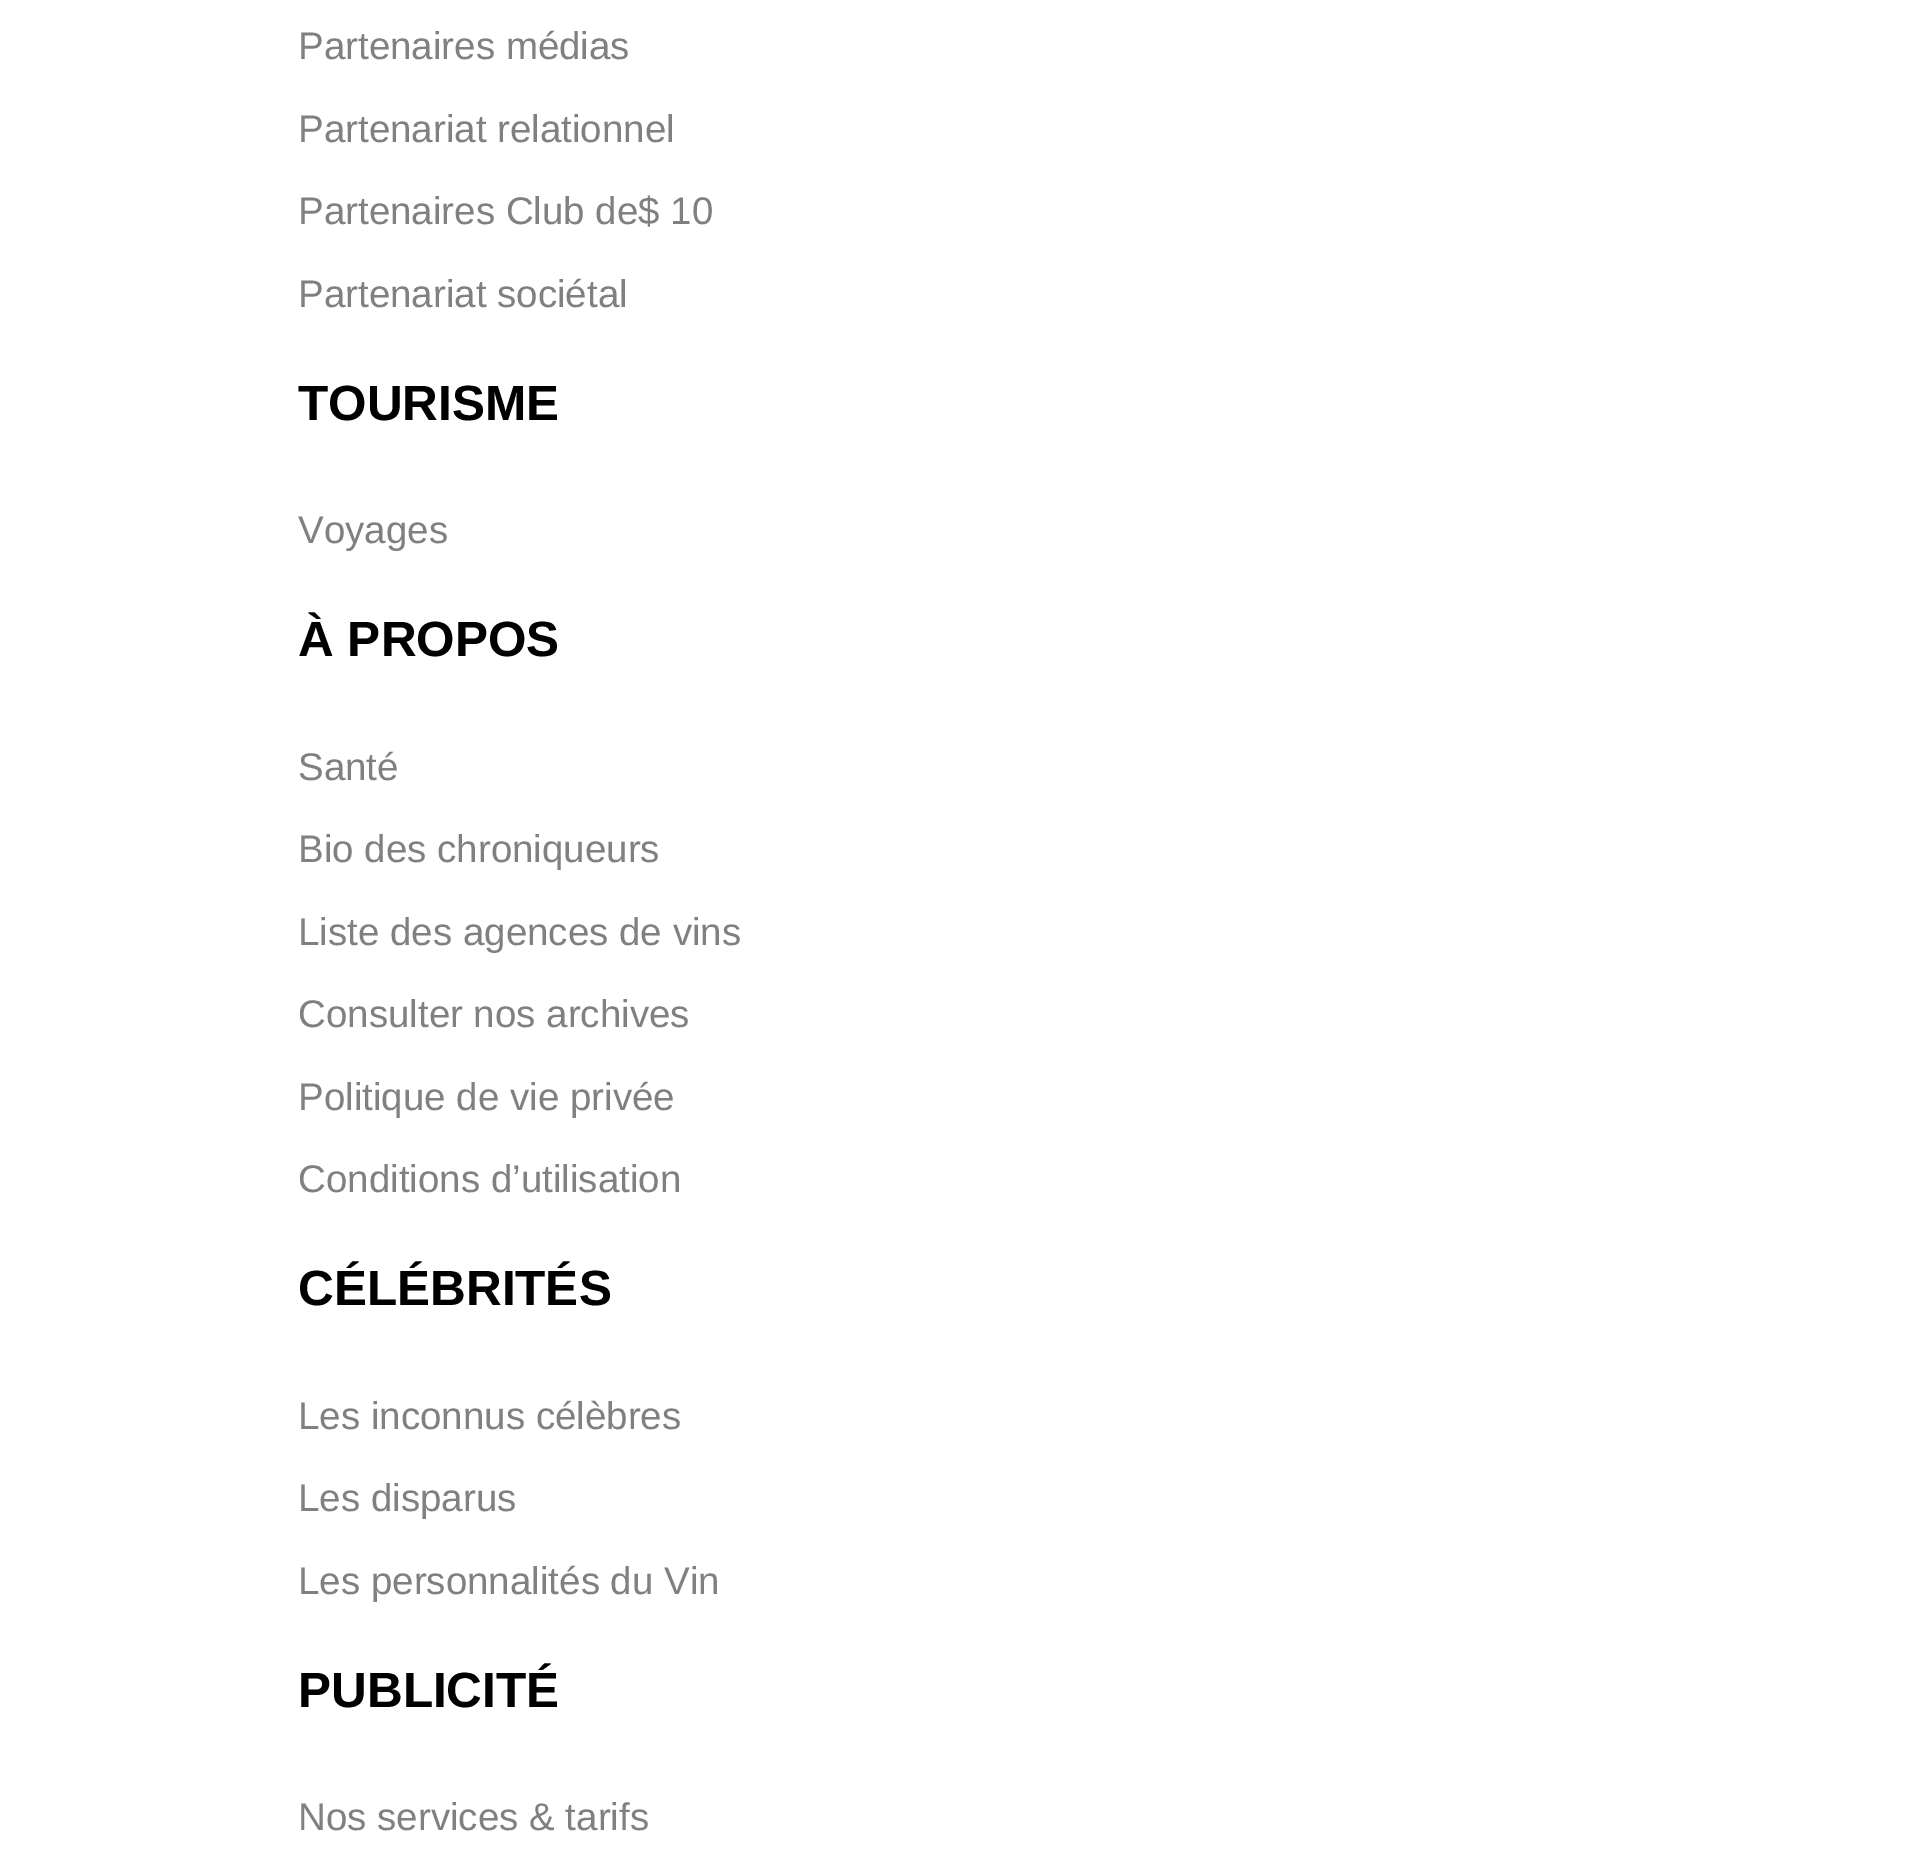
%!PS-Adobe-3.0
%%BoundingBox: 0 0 1916 1868
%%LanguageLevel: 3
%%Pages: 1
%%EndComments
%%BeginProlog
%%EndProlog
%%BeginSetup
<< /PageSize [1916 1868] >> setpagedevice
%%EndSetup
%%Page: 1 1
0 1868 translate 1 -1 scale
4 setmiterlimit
1 setgray
0 0 1916 1868 rectfill
/LiberationSans-Regular [38.5 0 0 -38.5 0 0] selectfont
0.502 setgray
298 59 moveto (Partenaires médias) show
298 142 moveto (Partenariat relationnel) show
298 224 moveto (Partenaires Club de$ 10) show
298 307 moveto (Partenariat sociétal) show
/LiberationSans-Bold [49.5 0 0 -49.5 0 0] selectfont
0 setgray
298 420 moveto (TOURISME) show
/LiberationSans-Regular [38.5 0 0 -38.5 0 0] selectfont
0.502 setgray
298 543 moveto (Voyages) show
/LiberationSans-Bold [49.5 0 0 -49.5 0 0] selectfont
0 setgray
298 656 moveto (À PROPOS) show
/LiberationSans-Regular [38.5 0 0 -38.5 0 0] selectfont
0.502 setgray
298 780 moveto (Santé) show
298 862 moveto (Bio des chroniqueurs) show
298 945 moveto (Liste des agences de vins) show
298 1027 moveto (Consulter nos archives) show
298 1110 moveto (Politique de vie privée) show
298 1192 moveto (Conditions d’utilisation) show
/LiberationSans-Bold [49.5 0 0 -49.5 0 0] selectfont
0 setgray
298 1305 moveto (CÉLÉBRITÉS) show
/LiberationSans-Regular [38.5 0 0 -38.5 0 0] selectfont
0.502 setgray
298 1429 moveto (Les inconnus célèbres) show
298 1511 moveto (Les disparus) show
298 1594 moveto (Les personnalités du Vin) show
/LiberationSans-Bold [49.5 0 0 -49.5 0 0] selectfont
0 setgray
298 1707 moveto (PUBLICITÉ) show
/LiberationSans-Regular [38.5 0 0 -38.5 0 0] selectfont
0.502 setgray
298 1830 moveto (Nos services & tarifs) show
showpage
%%EOF
